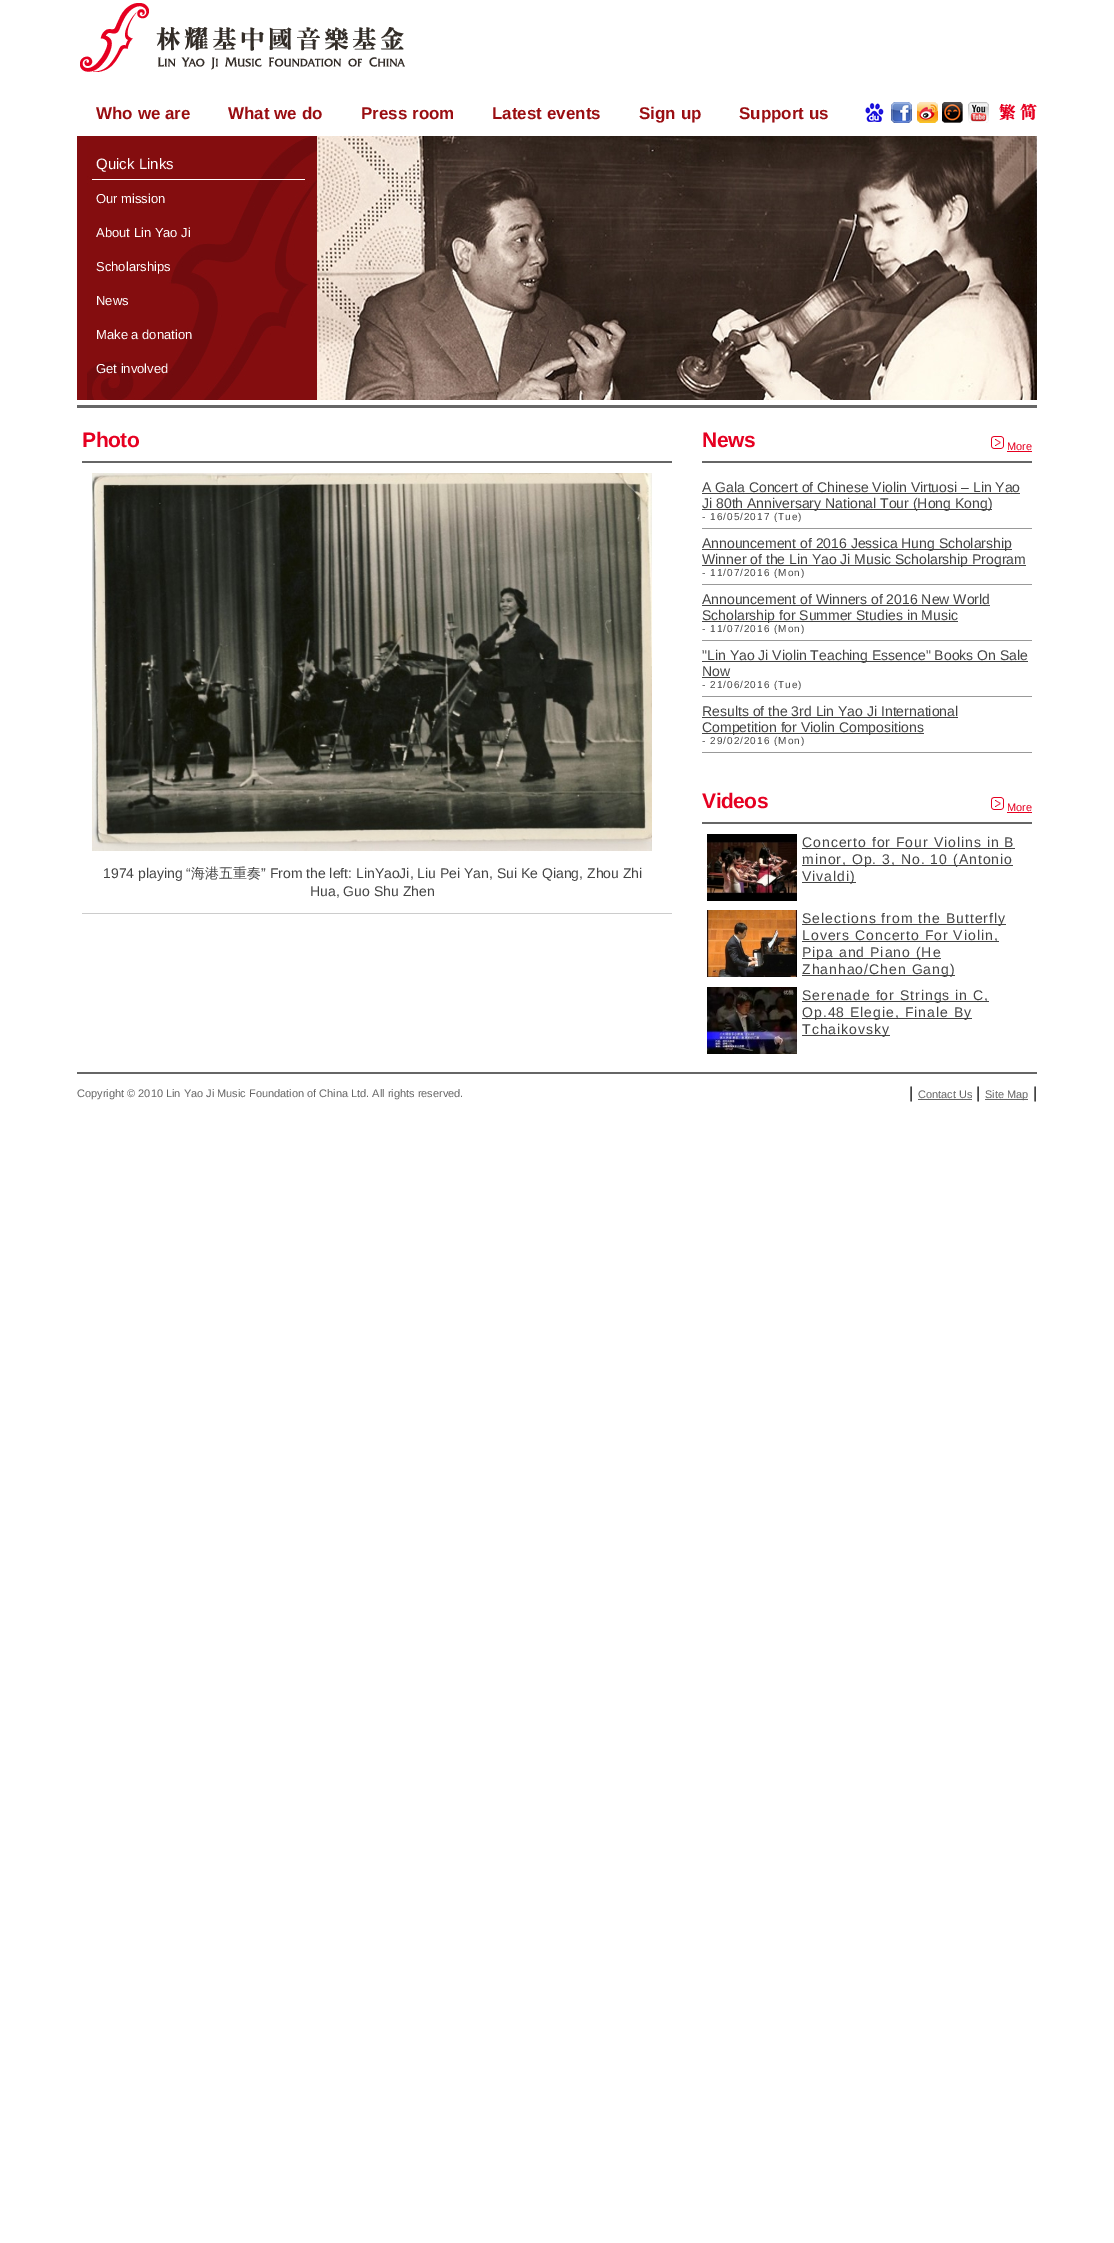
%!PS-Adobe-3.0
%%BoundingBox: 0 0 1114 2243
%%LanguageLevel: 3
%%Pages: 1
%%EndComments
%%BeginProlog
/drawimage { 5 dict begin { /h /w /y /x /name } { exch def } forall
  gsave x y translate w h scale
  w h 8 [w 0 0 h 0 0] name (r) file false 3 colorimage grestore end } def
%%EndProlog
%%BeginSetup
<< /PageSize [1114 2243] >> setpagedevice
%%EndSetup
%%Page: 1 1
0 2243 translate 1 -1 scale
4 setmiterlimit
1 setgray
0 0 1114 2243 rectfill
(images/1.raw) 80 3 325 69 drawimage
(images/2.raw) 865 103 19 19 drawimage
(images/3.raw) 891 102 21 21 drawimage
(images/4.raw) 917 102 21 21 drawimage
(images/5.raw) 942 102 21 21 drawimage
(images/6.raw) 968 102 21 21 drawimage
(images/7.raw) 999 104 17 16 drawimage
(images/8.raw) 1020 103 17 17 drawimage
0.518 0.051 0.063 setrgbcolor
77 136 10 264 rectfill
(images/9.raw) 87 136 230 264 drawimage
(images/10.raw) 317 136 720 264 drawimage
0.4 setgray
77 405 960 3 rectfill
82 461 590 2 rectfill
(images/11.raw) 92 473 560 378 drawimage
0.8 setgray
82 913 590 1 rectfill
(images/12.raw) 991 436 13 13 drawimage
0.902 0 0.129 setrgbcolor
1007 451 25 1 rectfill
0.4 setgray
702 461 330 2 rectfill
0.267 setgray
702 493 318 1 rectfill
702 509 290 1 rectfill
0.6 setgray
702 528 330 1 rectfill
0.267 setgray
702 549 310 1 rectfill
702 565 324 1 rectfill
0.6 setgray
702 584 330 1 rectfill
0.267 setgray
702 605 288 1 rectfill
702 621 256 1 rectfill
0.6 setgray
702 640 330 1 rectfill
0.267 setgray
702 661 326 1 rectfill
702 677 28 1 rectfill
0.6 setgray
702 696 330 1 rectfill
0.267 setgray
702 717 256 1 rectfill
702 733 222 1 rectfill
0.6 setgray
702 752 330 1 rectfill
(images/12.raw) 991 797 13 13 drawimage
0.902 0 0.129 setrgbcolor
1007 812 25 1 rectfill
0.4 setgray
702 822 330 2 rectfill
(images/13.raw) 707 834 90 67 drawimage
0.267 setgray
802 848 213 1 rectfill
802 865 211 1 rectfill
802 882 54 1 rectfill
(images/14.raw) 707 910 90 67 drawimage
802 924 204 1 rectfill
802 941 197 1 rectfill
802 958 139 1 rectfill
802 975 153 1 rectfill
(images/15.raw) 707 987 90 67 drawimage
802 1001 187 1 rectfill
802 1018 170 1 rectfill
802 1035 88 1 rectfill
0.4 setgray
77 1072 960 2 rectfill
918 1099 54 1 rectfill
985 1099 43 1 rectfill
/LiberationSans-Bold [17 0 0 -17 0 0] selectfont
0.604 0.055 0.071 setrgbcolor
96 119 moveto (Who we are) show
228 119 moveto (What we do) show
361 119 moveto (Press room) show
492 119 moveto (Latest events) show
639 119 moveto (Sign up) show
739 119 moveto (Support us) show
/LiberationSans-Regular [15 0 0 -15 0 0] selectfont
1 setgray
96 169 moveto (Quick Links) show
/LiberationSans-Regular [13 0 0 -13 0 0] selectfont
96 203 moveto (Our mission) show
96 237 moveto (About Lin Yao Ji) show
96 271 moveto (Scholarships) show
96 305 moveto (News) show
96 339 moveto (Make a donation) show
96 373 moveto (Get involved) show
/LiberationSans-Bold [21 0 0 -21 0 0] selectfont
0.902 0 0.129 setrgbcolor
82 447 moveto -0.5 0 (Photo) ashow
/LiberationSans-Regular [14 0 0 -14 0 0] selectfont
0.267 setgray
103 878 moveto (1974 playing “) show
/WenQuanYiZenHei-Medium [14 0 0 -14 0 0] selectfont
191 878 moveto (海港五重奏) show
/LiberationSans-Regular [14 0 0 -14 0 0] selectfont
261 878 moveto (” From the left: LinYaoJi, Liu Pei Yan, Sui Ke Qiang, Zhou Zhi) show
310 896 moveto (Hua, Guo Shu Zhen) show
/LiberationSans-Bold [21 0 0 -21 0 0] selectfont
0.902 0 0.129 setrgbcolor
702 447 moveto -0.5 0 (News) ashow
/LiberationSans-Regular [11 0 0 -11 0 0] selectfont
1007 450 moveto (More) show
/LiberationSans-Regular [14 0 0 -14 0 0] selectfont
0.267 setgray
702 492 moveto (A Gala Concert of Chinese Violin Virtuosi – Lin Yao) show
702 508 moveto (Ji 80th Anniversary National Tour \(Hong Kong\)) show
/LiberationSans-Regular [10 0 0 -10 0 0] selectfont
702 520 moveto 1 0 (- 16/05/2017 \(Tue\)) ashow
/LiberationSans-Regular [14 0 0 -14 0 0] selectfont
702 548 moveto (Announcement of 2016 Jessica Hung Scholarship) show
702 564 moveto (Winner of the Lin Yao Ji Music Scholarship Program) show
/LiberationSans-Regular [10 0 0 -10 0 0] selectfont
702 576 moveto 1 0 (- 11/07/2016 \(Mon\)) ashow
/LiberationSans-Regular [14 0 0 -14 0 0] selectfont
702 604 moveto (Announcement of Winners of 2016 New World) show
702 620 moveto (Scholarship for Summer Studies in Music) show
/LiberationSans-Regular [10 0 0 -10 0 0] selectfont
702 632 moveto 1 0 (- 11/07/2016 \(Mon\)) ashow
/LiberationSans-Regular [14 0 0 -14 0 0] selectfont
702 660 moveto ("Lin Yao Ji Violin Teaching Essence" Books On Sale) show
702 676 moveto (Now) show
/LiberationSans-Regular [10 0 0 -10 0 0] selectfont
702 688 moveto 1 0 (- 21/06/2016 \(Tue\)) ashow
/LiberationSans-Regular [14 0 0 -14 0 0] selectfont
702 716 moveto (Results of the 3rd Lin Yao Ji International) show
702 732 moveto (Competition for Violin Compositions) show
/LiberationSans-Regular [10 0 0 -10 0 0] selectfont
702 744 moveto 1 0 (- 29/02/2016 \(Mon\)) ashow
/LiberationSans-Bold [21 0 0 -21 0 0] selectfont
0.902 0 0.129 setrgbcolor
702 808 moveto -0.5 0 (Videos) ashow
/LiberationSans-Regular [11 0 0 -11 0 0] selectfont
1007 811 moveto (More) show
/LiberationSans-Regular [14 0 0 -14 0 0] selectfont
0.267 setgray
802 847 moveto 1 0 (Concerto for Four Violins in B) ashow
802 864 moveto 1 0 (minor, Op. 3, No. 10 \(Antonio) ashow
802 881 moveto 1 0 (Vivaldi\)) ashow
802 923 moveto 1 0 (Selections from the Butterfly) ashow
802 940 moveto 1 0 (Lovers Concerto For Violin,) ashow
802 957 moveto 1 0 (Pipa and Piano \(He) ashow
802 974 moveto 1 0 (Zhanhao/Chen Gang\)) ashow
802 1000 moveto 1 0 (Serenade for Strings in C,) ashow
802 1017 moveto 1 0 (Op.48 Elegie, Finale By) ashow
802 1034 moveto 1 0 (Tchaikovsky) ashow
/LiberationSans-Regular [11 0 0 -11 0 0] selectfont
0.4 setgray
77 1097 moveto (Copyright © 2010 Lin Yao Ji Music Foundation of China Ltd. All rights reserved.) show
/LiberationSans-Regular [16 0 0 -16 0 0] selectfont
0 setgray
909 1098 moveto (|) show
/LiberationSans-Regular [11 0 0 -11 0 0] selectfont
0.4 setgray
918 1098 moveto (Contact Us) show
/LiberationSans-Regular [16 0 0 -16 0 0] selectfont
0 setgray
976 1098 moveto (|) show
/LiberationSans-Regular [11 0 0 -11 0 0] selectfont
0.4 setgray
985 1098 moveto (Site Map) show
/LiberationSans-Regular [16 0 0 -16 0 0] selectfont
0 setgray
1033 1098 moveto (|) show
showpage
%%EOF
